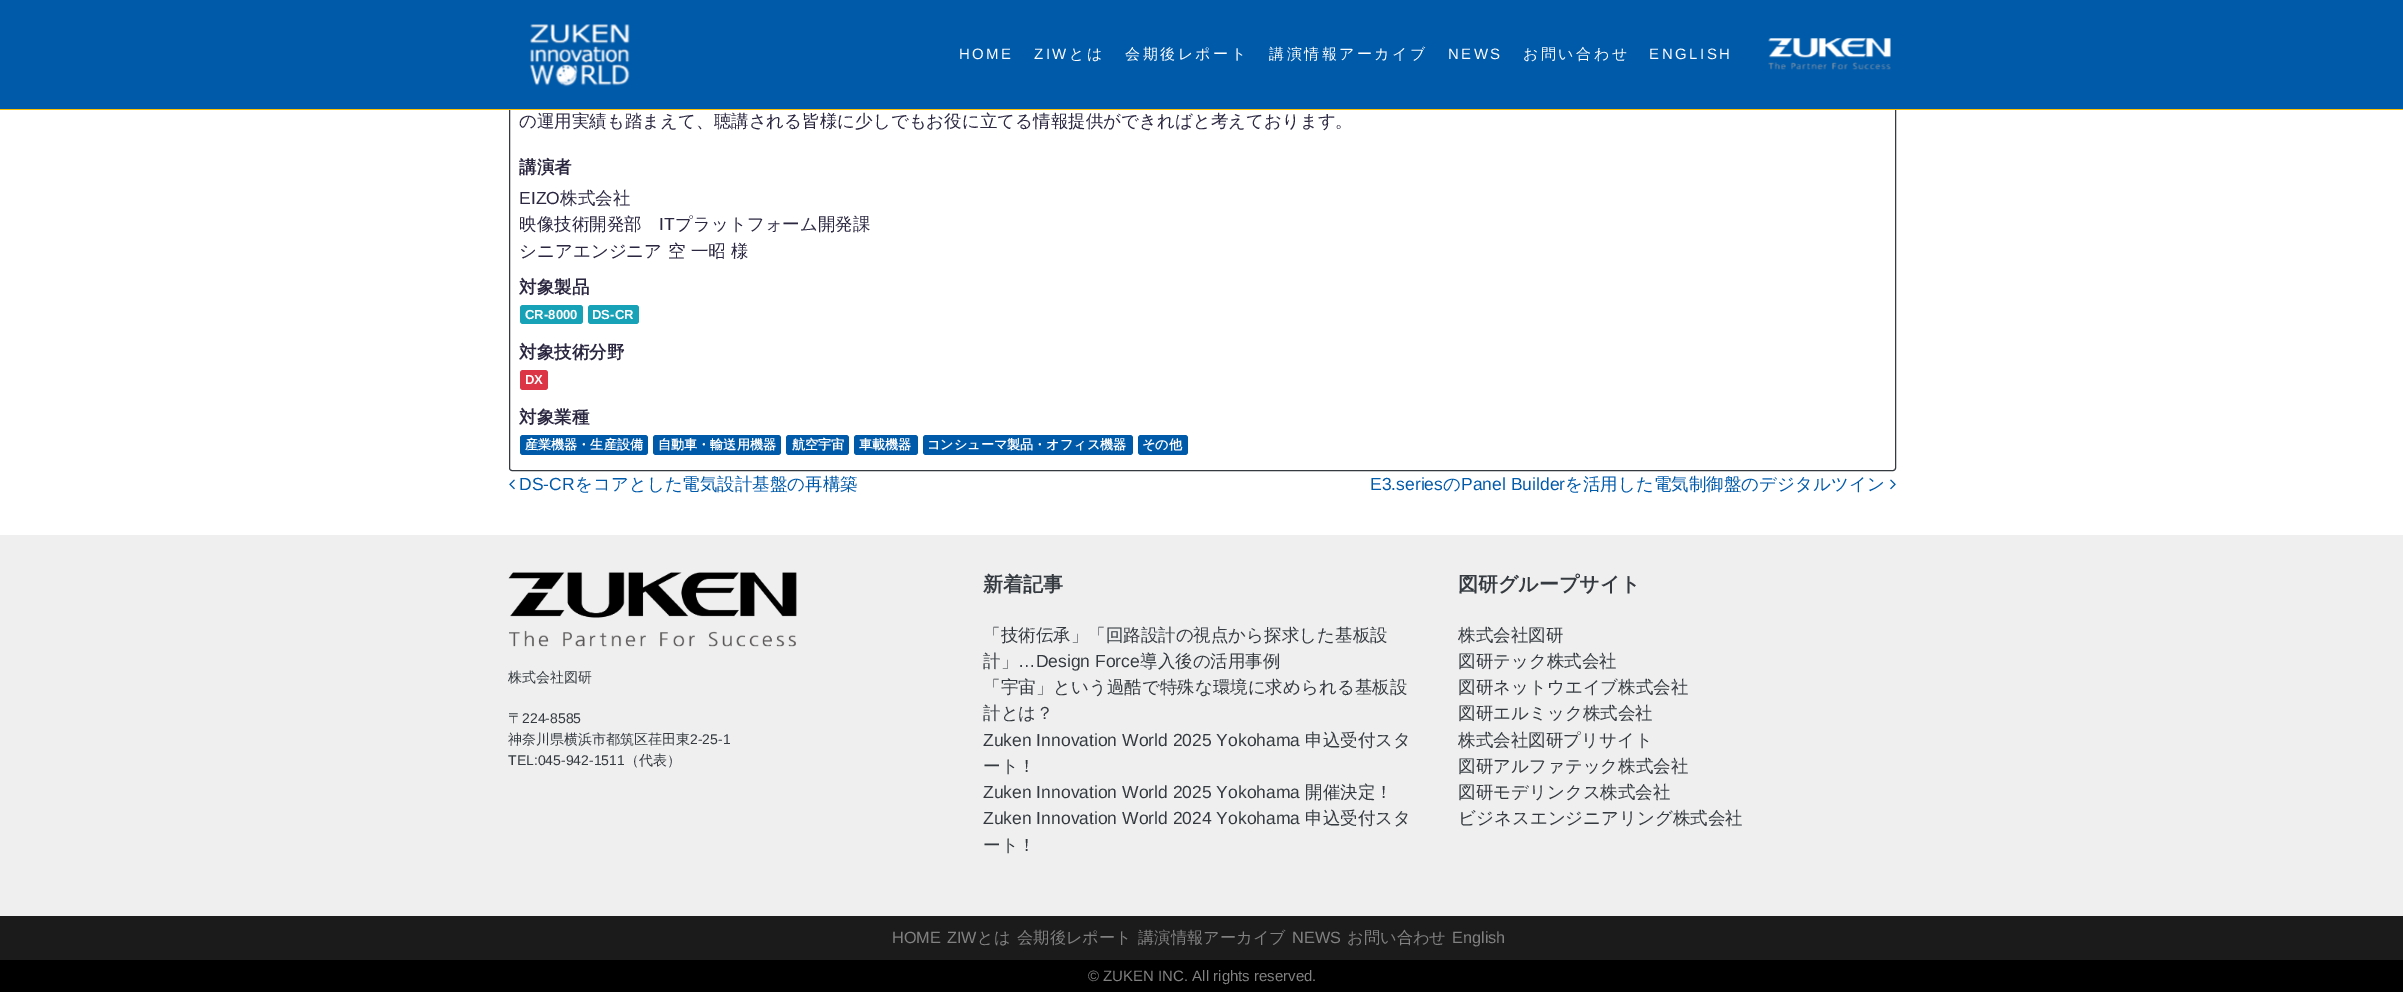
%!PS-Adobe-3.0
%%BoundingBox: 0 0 2403 992
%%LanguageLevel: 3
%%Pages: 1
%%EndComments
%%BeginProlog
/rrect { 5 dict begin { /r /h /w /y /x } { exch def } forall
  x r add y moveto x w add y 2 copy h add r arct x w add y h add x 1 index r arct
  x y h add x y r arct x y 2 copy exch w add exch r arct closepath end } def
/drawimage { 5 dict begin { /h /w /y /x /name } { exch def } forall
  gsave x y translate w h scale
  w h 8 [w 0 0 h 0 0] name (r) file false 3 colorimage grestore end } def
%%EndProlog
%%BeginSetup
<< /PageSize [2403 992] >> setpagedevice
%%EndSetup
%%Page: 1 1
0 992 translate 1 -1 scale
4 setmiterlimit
1 setgray
0 0 2403 992 rectfill
0.204 0.227 0.251 setrgbcolor
509.5 -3.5 1386 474 2.5 rrect stroke
0 0.353 0.667 setrgbcolor
0 0 2403 109 rectfill
0.98 0.745 0 setrgbcolor
0 109 2403 1 rectfill
(images/1.raw) 529 24 101 63 drawimage
(images/2.raw) 1768 38 123 32 drawimage
0.09 0.635 0.722 setrgbcolor
520 305 63 19 3 rrect fill
588 305 51 19 3 rrect fill
0.863 0.208 0.271 setrgbcolor
520 370 28 20 3 rrect fill
0 0.353 0.667 setrgbcolor
520 435 128 20 3 rrect fill
653 435 128 20 3 rrect fill
786 435 63 20 3 rrect fill
854 435 64 20 3 rrect fill
923 435 210 20 3 rrect fill
1138 435 50 20 3 rrect fill
(images/3.raw) 509 479 6 11 drawimage
(images/4.raw) 1890 479 6 11 drawimage
0.937 setgray
0 535 2403 381 rectfill
(images/5.raw) 508 572 289 75 drawimage
0.106 setgray
0 916 2403 44 rectfill
0 setgray
0 960 2403 32 rectfill
/LiberationSans-Regular [15 0 0 -15 0 0] selectfont
1 setgray
959 59 moveto 2.5 0 (HOME) ashow
1034 59 moveto 2.5 0 (ZIW) ashow
/WenQuanYiZenHei-Medium [15 0 0 -15 0 0] selectfont
1069 59 moveto 2.5 0 (とは) ashow
1125 59 moveto 2.5 0 (会期後レポート) ashow
1269 59 moveto 2.5 0 (講演情報アーカイブ) ashow
/LiberationSans-Regular [15 0 0 -15 0 0] selectfont
1448 59 moveto 2.5 0 (NEWS) ashow
/WenQuanYiZenHei-Medium [15 0 0 -15 0 0] selectfont
1523 59 moveto 2.5 0 (お問い合わせ) ashow
/LiberationSans-Regular [15 0 0 -15 0 0] selectfont
1649 59 moveto 2.5 0 (ENGLISH) ashow
/WenQuanYiZenHei-Medium [17.5 0 0 -17.5 0 0] selectfont
0.169 0.153 0.255 setrgbcolor
519 127 moveto (の運用実績も踏まえて、聴講される皆様に少しでもお役に立てる情報提供ができればと考えております。) show
/WenQuanYiZenHei-Bold [17.5 0 0 -17.5 0 0] selectfont
519 173 moveto (講演者) show
/LiberationSans-Regular [17.5 0 0 -17.5 0 0] selectfont
519 204 moveto (EIZO) show
/WenQuanYiZenHei-Medium [17.5 0 0 -17.5 0 0] selectfont
560 204 moveto (株式会社) show
519 230 moveto (映像技術開発部) show
/LiberationSans-Regular [17.5 0 0 -17.5 0 0] selectfont
659 230 moveto (IT) show
/WenQuanYiZenHei-Medium [17.5 0 0 -17.5 0 0] selectfont
675 230 moveto (プラットフォーム開発課) show
519 257 moveto (シニアエンジニア) show
668 257 moveto (空 一昭 様) show
/WenQuanYiZenHei-Bold [17.5 0 0 -17.5 0 0] selectfont
519 293 moveto (対象製品) show
/LiberationSans-Bold [13.1 0 0 -13.1 0 0] selectfont
1 setgray
525 319 moveto (CR-8000) show
592 319 moveto (DS-CR) show
/WenQuanYiZenHei-Bold [17.5 0 0 -17.5 0 0] selectfont
0.169 0.153 0.255 setrgbcolor
519 358 moveto (対象技術分野) show
/LiberationSans-Bold [13.1 0 0 -13.1 0 0] selectfont
1 setgray
525 384 moveto (DX) show
/WenQuanYiZenHei-Bold [17.5 0 0 -17.5 0 0] selectfont
0.169 0.153 0.255 setrgbcolor
519 423 moveto (対象業種) show
/WenQuanYiZenHei-Bold [13.1 0 0 -13.1 0 0] selectfont
1 setgray
525 449 moveto (産業機器・生産設備) show
658 449 moveto (自動車・輸送用機器) show
792 449 moveto (航空宇宙) show
859 449 moveto (車載機器) show
927 449 moveto (コンシューマ製品・オフィス機器) show
1142 449 moveto (その他) show
/LiberationSans-Regular [17.5 0 0 -17.5 0 0] selectfont
0 0.353 0.667 setrgbcolor
519 490 moveto (DS-CR) show
/WenQuanYiZenHei-Medium [17.5 0 0 -17.5 0 0] selectfont
575 490 moveto (をコアとした電気設計基盤の再構築) show
/LiberationSans-Regular [17.5 0 0 -17.5 0 0] selectfont
1370 490 moveto (E3.series) show
/WenQuanYiZenHei-Medium [17.5 0 0 -17.5 0 0] selectfont
1443 490 moveto (の) show
/LiberationSans-Regular [17.5 0 0 -17.5 0 0] selectfont
1461 490 moveto (Panel Builder) show
/WenQuanYiZenHei-Medium [17.5 0 0 -17.5 0 0] selectfont
1565 490 moveto (を活用した電気制御盤のデジタルツイン) show
/WenQuanYiZenHei-Medium [14 0 0 -14 0 0] selectfont
0.204 0.227 0.251 setrgbcolor
508 682 moveto (株式会社図研) show
508 723 moveto (〒) show
/LiberationSans-Regular [14 0 0 -14 0 0] selectfont
522 723 moveto (224-8585) show
/WenQuanYiZenHei-Medium [14 0 0 -14 0 0] selectfont
508 744 moveto (神奈川県横浜市都筑区荏田東) show
/LiberationSans-Regular [14 0 0 -14 0 0] selectfont
690 744 moveto (2-25-1) show
508 765 moveto (TEL:045-942-1511) show
/WenQuanYiZenHei-Medium [14 0 0 -14 0 0] selectfont
625 765 moveto (（代表）) show
/WenQuanYiZenHei-Bold [20 0 0 -20 0 0] selectfont
983 591 moveto (新着記事) show
/WenQuanYiZenHei-Medium [17.5 0 0 -17.5 0 0] selectfont
983 641 moveto (「技術伝承」「回路設計の視点から探求した基板設) show
983 667 moveto (計」) show
/LiberationSans-Regular [17.5 0 0 -17.5 0 0] selectfont
1018 667 moveto (…Design Force) show
/WenQuanYiZenHei-Medium [17.5 0 0 -17.5 0 0] selectfont
1140 667 moveto (導入後の活用事例) show
983 693 moveto (「宇宙」という過酷で特殊な環境に求められる基板設) show
983 719 moveto (計とは？) show
/LiberationSans-Regular [17.5 0 0 -17.5 0 0] selectfont
983 746 moveto (Zuken Innovation World 2025 Yokohama) show
/WenQuanYiZenHei-Medium [17.5 0 0 -17.5 0 0] selectfont
1305 746 moveto (申込受付スタ) show
983 772 moveto (ート！) show
/LiberationSans-Regular [17.5 0 0 -17.5 0 0] selectfont
983 798 moveto (Zuken Innovation World 2025 Yokohama) show
/WenQuanYiZenHei-Medium [17.5 0 0 -17.5 0 0] selectfont
1305 798 moveto (開催決定！) show
/LiberationSans-Regular [17.5 0 0 -17.5 0 0] selectfont
983 824 moveto (Zuken Innovation World 2024 Yokohama) show
/WenQuanYiZenHei-Medium [17.5 0 0 -17.5 0 0] selectfont
1305 824 moveto (申込受付スタ) show
983 851 moveto (ート！) show
/WenQuanYiZenHei-Bold [20 0 0 -20 0 0] selectfont
1458 591 moveto (図研グループサイト) show
/WenQuanYiZenHei-Medium [17.5 0 0 -17.5 0 0] selectfont
1458 641 moveto (株式会社図研) show
1458 667 moveto (図研テック株式会社) show
1458 693 moveto (図研ネットウエイブ株式会社) show
1458 719 moveto (図研エルミック株式会社) show
1458 746 moveto (株式会社図研プリサイト) show
1458 772 moveto (図研アルファテック株式会社) show
1458 798 moveto (図研モデリンクス株式会社) show
1458 824 moveto (ビジネスエンジニアリング株式会社) show
/LiberationSans-Regular [16.25 0 0 -16.25 0 0] selectfont
0.506 setgray
892 943 moveto (HOME) show
947 943 moveto (ZIW) show
/WenQuanYiZenHei-Medium [16.25 0 0 -16.25 0 0] selectfont
977 943 moveto (とは) show
1017 943 moveto (会期後レポート) show
1138 943 moveto (講演情報アーカイブ) show
/LiberationSans-Regular [16.25 0 0 -16.25 0 0] selectfont
1292 943 moveto (NEWS) show
/WenQuanYiZenHei-Medium [16.25 0 0 -16.25 0 0] selectfont
1347 943 moveto (お問い合わせ) show
/LiberationSans-Regular [16.25 0 0 -16.25 0 0] selectfont
1452 943 moveto (English) show
/LiberationSans-Regular [15 0 0 -15 0 0] selectfont
1088 981 moveto (© ZUKEN INC. All rights reserved.) show
showpage
%%EOF
